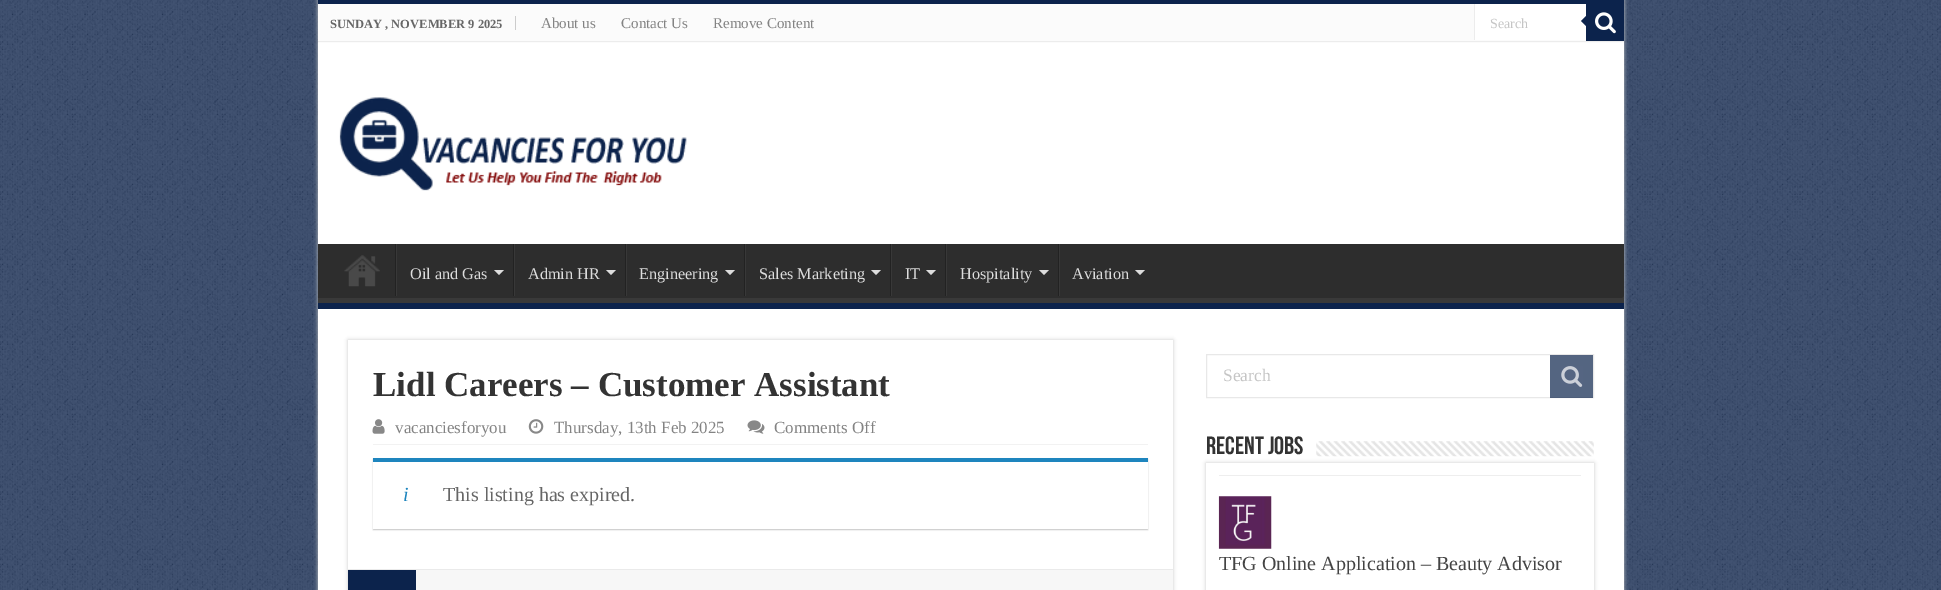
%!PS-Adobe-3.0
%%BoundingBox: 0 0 1941 590
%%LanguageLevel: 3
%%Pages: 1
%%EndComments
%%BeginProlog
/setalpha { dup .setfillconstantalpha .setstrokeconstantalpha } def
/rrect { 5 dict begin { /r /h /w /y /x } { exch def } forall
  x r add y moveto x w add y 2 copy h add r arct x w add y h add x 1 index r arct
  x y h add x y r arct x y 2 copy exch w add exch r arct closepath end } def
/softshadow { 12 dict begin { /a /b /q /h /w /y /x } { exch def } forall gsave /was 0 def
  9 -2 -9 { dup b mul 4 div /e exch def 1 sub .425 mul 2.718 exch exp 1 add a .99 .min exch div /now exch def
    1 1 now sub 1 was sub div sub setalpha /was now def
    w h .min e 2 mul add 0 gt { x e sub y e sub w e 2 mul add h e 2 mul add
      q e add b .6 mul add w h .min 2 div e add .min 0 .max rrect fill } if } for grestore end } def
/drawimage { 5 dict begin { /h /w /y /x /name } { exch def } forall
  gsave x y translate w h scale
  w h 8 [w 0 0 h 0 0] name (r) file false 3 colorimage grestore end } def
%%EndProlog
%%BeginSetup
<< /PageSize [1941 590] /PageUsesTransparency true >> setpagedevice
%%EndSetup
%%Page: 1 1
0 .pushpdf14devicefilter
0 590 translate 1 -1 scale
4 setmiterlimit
0.047 0.137 0.298 setrgbcolor
0 0 1941 590 rectfill
(images/1.raw) 0 0 1941 590 drawimage
0.792 setgray
318 0 1306 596 0 2 1 softshadow
1 setgray
318 43 1306 547 rectfill
0.047 0.137 0.298 setrgbcolor
318 0 1306 4 rectfill
0.984 setgray
318 4 1306 39 rectfill
0.925 setgray
318 41 1306 1 rectfill
0.8 setgray
515 16 1 14 rectfill
1 setgray
1475 4 111 36 rectfill
0.925 setgray
1474 4 1 36 rectfill
0.047 0.137 0.298 setrgbcolor
1586 4 38 37 rectfill
(images/2.raw) 1595 12 21 22 drawimage
newpath 1586 16 moveto 1586 26 lineto 1581 21 lineto closepath fill
(images/3.raw) 339 97 348 94 drawimage
0.176 setgray
318 244 1306 54 rectfill
gsave
318 244 1306 59 rectclip
0.224 setgray
newpath 194 120 moveto 1748 120 lineto 1748 426 lineto 194 426 lineto closepath 316 236 moveto 1622 236 lineto 1623 236 1624 237 1624 238 curveto 1624 296 lineto 1624 297 1623 298 1622 298 curveto 316 298 lineto 316 298 315 297 315 296 curveto 315 238 lineto 315 237 316 236 316 236 curveto closepath eofill
grestore
0.047 0.137 0.298 setrgbcolor
318 303 1306 6 rectfill
(images/4.raw) 344 255 36 32 drawimage
0.133 setgray
395 244 1 52 rectfill
0.22 setgray
396 244 1 52 rectfill
0.867 setgray
newpath 494 270 moveto 504 270 lineto 499 275 lineto closepath fill
0.133 setgray
513 244 1 52 rectfill
0.22 setgray
514 244 1 52 rectfill
0.867 setgray
newpath 606 270 moveto 616 270 lineto 611 275 lineto closepath fill
0.133 setgray
625 244 1 52 rectfill
0.22 setgray
626 244 1 52 rectfill
0.867 setgray
newpath 725 270 moveto 735 270 lineto 730 275 lineto closepath fill
0.133 setgray
744 244 1 52 rectfill
0.22 setgray
745 244 1 52 rectfill
0.867 setgray
newpath 871 270 moveto 881 270 lineto 876 275 lineto closepath fill
0.133 setgray
890 244 1 52 rectfill
0.22 setgray
891 244 1 52 rectfill
0.867 setgray
newpath 926 270 moveto 936 270 lineto 931 275 lineto closepath fill
0.133 setgray
945 244 1 52 rectfill
0.22 setgray
946 244 1 52 rectfill
0.867 setgray
newpath 1039 270 moveto 1049 270 lineto 1044 275 lineto closepath fill
0.133 setgray
1058 244 1 52 rectfill
0.22 setgray
1059 244 1 52 rectfill
0.867 setgray
newpath 1135 270 moveto 1145 270 lineto 1140 275 lineto closepath fill
0.792 setgray
348 340 825 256 0 2 1 softshadow
1 setgray
348 340 825 229 rectfill
0.949 setgray
373 444 775 1 rectfill
(images/5.raw) 372 419 13 15 drawimage
(images/6.raw) 528 419 16 15 drawimage
(images/7.raw) 747 420 18 14 drawimage
0 setgray
373 459 775 71 0 0.5 0.2 softshadow
1 setgray
373 462 775 67 rectfill
0.118 0.522 0.745 setrgbcolor
373 458 775 4 rectfill
0.969 setgray
416 570 757 20 rectfill
0.918 setgray
348 569 825 1 rectfill
0.047 0.137 0.298 setrgbcolor
348 570 68 20 rectfill
0.91 setgray
1206.5 354.5 387 43 rectstroke
0.7 setalpha
0.047 0.137 0.298 setrgbcolor
1550 355 43 43 rectfill
1 setalpha
(images/8.raw) 1561 366 22 21 drawimage
0.792 setgray
1206 463 388 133 0 2 1 softshadow
(images/9.raw) 1316 441 278 16 drawimage
1 setgray
1206 463 388 127 rectfill
0.933 setgray
1219 475 362 1 rectfill
(images/10.raw) 1218 496 54 53 drawimage
/LiberationSerif-Bold [12.5 0 0 -12.5 0 0] selectfont
0.4 setgray
330 28 moveto (SUNDAY , NOVEMBER 9 2025) show
/LiberationSerif-Regular [15 0 0 -15 0 0] selectfont
0.514 setgray
541 28 moveto (About us) show
621 28 moveto (Contact Us) show
713 28 moveto (Remove Content) show
/LiberationSerif-Regular [14 0 0 -14 0 0] selectfont
0.773 setgray
1490 28 moveto (Search) show
/LiberationSerif-Regular [16.25 0 0 -16.25 0 0] selectfont
0.867 setgray
410 279 moveto (Oil and Gas) show
528 279 moveto (Admin HR) show
639 279 moveto (Engineering) show
759 279 moveto (Sales Marketing) show
905 279 moveto (IT) show
960 279 moveto (Hospitality) show
1072 279 moveto (Aviation) show
/LiberationSerif-Bold [35 0 0 -35 0 0] selectfont
0.2 setgray
373 396 moveto (Lidl Careers – Customer Assistant) show
/LiberationSerif-Regular [17 0 0 -17 0 0] selectfont
0.514 setgray
395 433 moveto (vacanciesforyou) show
554 433 moveto (Thursday, 13th Feb 2025) show
774 433 moveto (Comments Off) show
/LiberationSerif-Italic [20 0 0 -20 0 0] selectfont
0.118 0.522 0.745 setrgbcolor
403 501 moveto (i) show
/LiberationSerif-Regular [20 0 0 -20 0 0] selectfont
0.4 setgray
443 501 moveto (This listing has expired.) show
/LiberationSerif-Regular [17.5 0 0 -17.5 0 0] selectfont
0.773 setgray
1223 381 moveto (Search) show
/BebasNeue-Bold [25 0 0 -25 0 0] selectfont
0.2 setgray
1206 454 moveto (Recent Jobs) show
/LiberationSerif-Regular [20 0 0 -20 0 0] selectfont
0.267 setgray
1219 570 moveto (TFG Online Application – Beauty Advisor) show
.poppdf14devicefilter showpage
%%EOF
